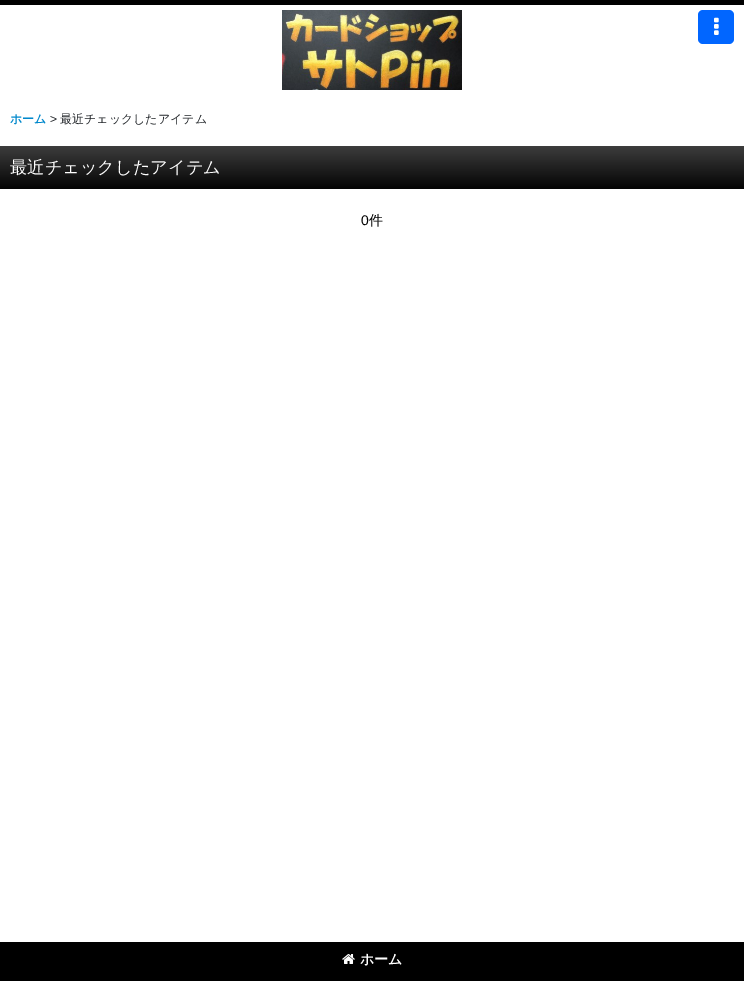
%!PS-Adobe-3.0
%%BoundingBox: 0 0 744 981
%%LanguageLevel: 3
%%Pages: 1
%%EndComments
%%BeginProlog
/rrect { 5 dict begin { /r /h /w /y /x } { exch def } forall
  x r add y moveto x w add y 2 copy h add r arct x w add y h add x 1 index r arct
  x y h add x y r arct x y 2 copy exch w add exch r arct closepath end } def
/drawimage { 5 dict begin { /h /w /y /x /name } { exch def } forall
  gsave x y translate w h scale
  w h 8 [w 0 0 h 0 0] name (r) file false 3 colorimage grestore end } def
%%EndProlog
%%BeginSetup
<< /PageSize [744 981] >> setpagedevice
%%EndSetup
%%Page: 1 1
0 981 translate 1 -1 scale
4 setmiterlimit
1 setgray
0 0 744 981 rectfill
0 setgray
0 0 744 5 rectfill
(images/1.raw) 282 10 180 80 drawimage
0.004 0.4 1 setrgbcolor
698 10 36 34 5 rrect fill
(images/2.raw) 714 17 5 18 drawimage
(images/3.raw) 0 146 744 43 drawimage
0 setgray
0 942 744 39 rectfill
(images/4.raw) 342 954 13 10 drawimage
/WenQuanYiZenHei-Bold [12 0 0 -12 0 0] selectfont
0 0.533 0.8 setrgbcolor
10 123 moveto (ホーム) show
/LiberationSans-Regular [12 0 0 -12 0 0] selectfont
0.129 0.145 0.161 setrgbcolor
50 123 moveto (>) show
/WenQuanYiZenHei-Medium [12 0 0 -12 0 0] selectfont
60 123 moveto (最近チェックしたアイテム) show
/WenQuanYiZenHei-Medium [17.25 0 0 -17.25 0 0] selectfont
1 setgray
10 173 moveto (最近チェックしたアイテム) show
/LiberationSans-Regular [14 0 0 -14 0 0] selectfont
0 setgray
361 225 moveto (0) show
/WenQuanYiZenHei-Medium [14 0 0 -14 0 0] selectfont
369 225 moveto (件) show
/WenQuanYiZenHei-Bold [14 0 0 -14 0 0] selectfont
1 setgray
360 964 moveto (ホーム) show
showpage
%%EOF
